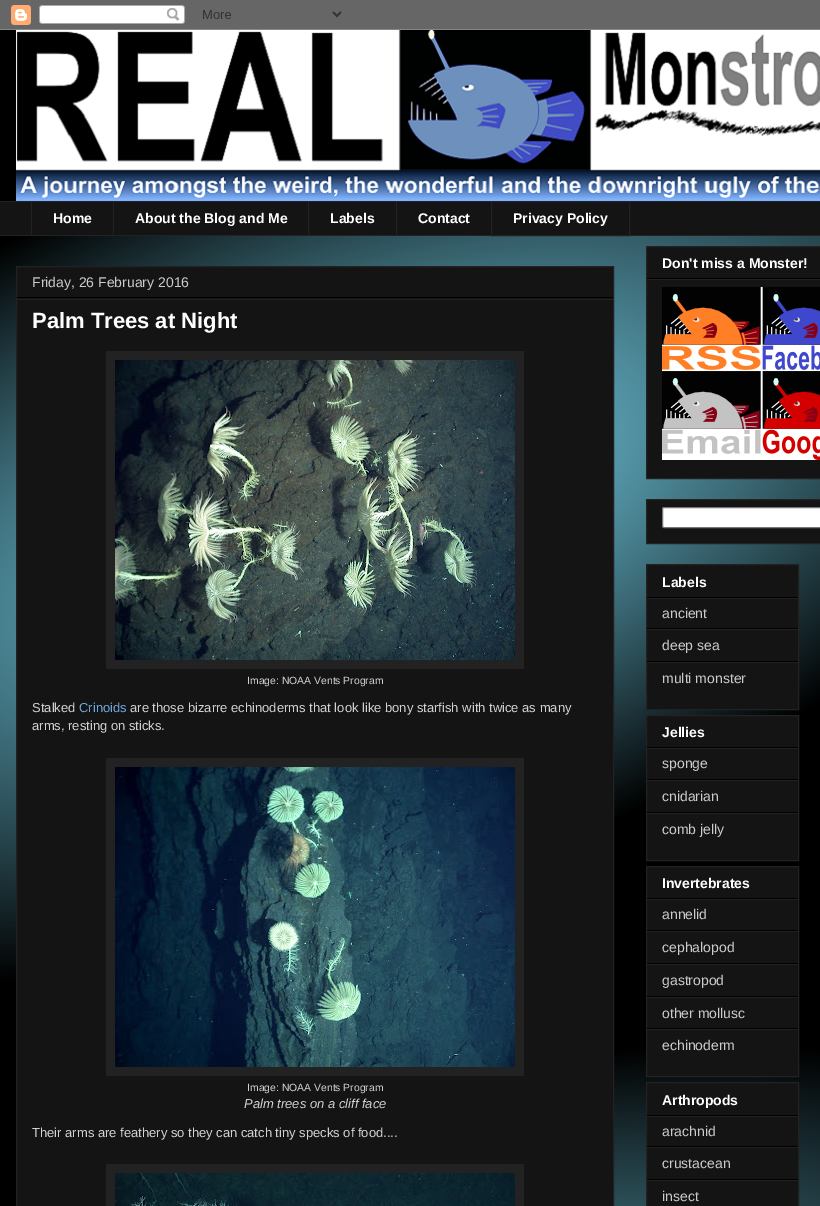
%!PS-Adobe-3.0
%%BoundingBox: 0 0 820 1206
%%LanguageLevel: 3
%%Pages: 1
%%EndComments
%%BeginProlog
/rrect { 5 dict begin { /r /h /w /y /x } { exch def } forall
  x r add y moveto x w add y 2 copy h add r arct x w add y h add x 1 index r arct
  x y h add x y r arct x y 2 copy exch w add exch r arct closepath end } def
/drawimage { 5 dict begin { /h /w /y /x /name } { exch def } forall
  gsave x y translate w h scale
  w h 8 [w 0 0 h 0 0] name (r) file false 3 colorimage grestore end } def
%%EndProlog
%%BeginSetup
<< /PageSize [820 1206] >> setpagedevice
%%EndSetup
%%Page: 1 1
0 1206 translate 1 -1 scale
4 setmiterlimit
0 setgray
0 0 820 1206 rectfill
(images/1.raw) 0 53 820 1153 drawimage
(images/2.raw) 0 0 820 30 drawimage
(images/3.raw) 16 30 804 171 drawimage
0.078 setgray
0 202 820 33 rectfill
0.133 setgray
0 201 820 1 rectfill
31 201 1 35 rectfill
113 201 1 35 rectfill
308 201 1 35 rectfill
396 201 1 35 rectfill
491.5 201.5 138 34 rectstroke
0 235 820 1 rectfill
0.078 setgray
newpath 16.5 266.5 moveto 613.5 266.5 lineto 613.5 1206.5 lineto 16.5 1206.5 lineto closepath gsave fill grestore
0.133 setgray
stroke
0 setgray
17 297 596 1 rectfill
0.133 setgray
17 299 596 1 rectfill
106 351 418 318 rectfill
(images/4.raw) 115 360 400 300 drawimage
106 758 418 318 rectfill
(images/5.raw) 115 767 400 300 drawimage
106 1164 418 42 rectfill
(images/6.raw) 115 1173 400 33 drawimage
0.078 setgray
newpath 646.5 246.5 moveto 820.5 246.5 lineto 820.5 478.5 lineto 646.5 478.5 lineto closepath gsave fill grestore
0.133 setgray
stroke
0 setgray
647 278 173 1 rectfill
0.133 setgray
647 279 173 1 rectfill
(images/7.raw) 662 287 158 173 drawimage
0.078 setgray
newpath 646.5 499.5 moveto 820.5 499.5 lineto 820.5 543.5 lineto 646.5 543.5 lineto closepath gsave fill grestore
0.133 setgray
stroke
1 setgray
662.5 507.5 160 20 1.5 rrect gsave fill grestore
0.463 setgray
stroke
0.078 setgray
newpath 646.5 564.5 moveto 798.5 564.5 lineto 798.5 709.5 lineto 646.5 709.5 lineto closepath gsave fill grestore
0.133 setgray
stroke
0 setgray
647 597 151 1 rectfill
0.133 setgray
647 598 151 1 rectfill
0 setgray
647 628 151 1 rectfill
0.133 setgray
647 629 151 1 rectfill
0 setgray
647 661 151 1 rectfill
0.133 setgray
647 662 151 1 rectfill
0.078 setgray
newpath 646.5 715.5 moveto 798.5 715.5 lineto 798.5 860.5 lineto 646.5 860.5 lineto closepath gsave fill grestore
0.133 setgray
stroke
0 setgray
647 747 151 1 rectfill
0.133 setgray
647 748 151 1 rectfill
0 setgray
647 779 151 1 rectfill
0.133 setgray
647 780 151 1 rectfill
0 setgray
647 812 151 1 rectfill
0.133 setgray
647 813 151 1 rectfill
0.078 setgray
newpath 646.5 866.5 moveto 798.5 866.5 lineto 798.5 1076.5 lineto 646.5 1076.5 lineto closepath gsave fill grestore
0.133 setgray
stroke
0 setgray
647 898 151 1 rectfill
0.133 setgray
647 899 151 1 rectfill
0 setgray
647 930 151 1 rectfill
0.133 setgray
647 931 151 1 rectfill
0 setgray
647 963 151 1 rectfill
0.133 setgray
647 964 151 1 rectfill
0 setgray
647 996 151 1 rectfill
0.133 setgray
647 997 151 1 rectfill
0 setgray
647 1028 151 1 rectfill
0.133 setgray
647 1029 151 1 rectfill
0.078 setgray
newpath 646.5 1082.5 moveto 798.5 1082.5 lineto 798.5 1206.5 lineto 646.5 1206.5 lineto closepath gsave fill grestore
0.133 setgray
stroke
0 setgray
647 1115 151 1 rectfill
0.133 setgray
647 1116 151 1 rectfill
0 setgray
647 1146 151 1 rectfill
0.133 setgray
647 1147 151 1 rectfill
0 setgray
647 1179 151 1 rectfill
0.133 setgray
647 1180 151 1 rectfill
/LiberationSans-Bold [14 0 0 -14 0 0] selectfont
1 setgray
53 223 moveto (Home) show
135 223 moveto (About the Blog and Me) show
330 223 moveto (Labels) show
418 223 moveto (Contact) show
513 223 moveto (Privacy Policy) show
/LiberationSans-Regular [14 0 0 -14 0 0] selectfont
0.8 setgray
32 287 moveto (Friday, 26 February 2016) show
/LiberationSans-Bold [22 0 0 -22 0 0] selectfont
1 setgray
32 328 moveto (Palm Trees at Night) show
/LiberationSans-Regular [10.4 0 0 -10.4 0 0] selectfont
0.824 setgray
247 684 moveto (Image: NOAA Vents Program) show
/LiberationSans-Regular [13 0 0 -13 0 0] selectfont
32 712 moveto (Stalked) show
0.435 0.659 0.863 setrgbcolor
79 712 moveto (Crinoids) show
0.824 setgray
130 712 moveto (are those bizarre echinoderms that look like bony starfish with twice as many) show
32 730 moveto (arms, resting on sticks.) show
/LiberationSans-Regular [10.4 0 0 -10.4 0 0] selectfont
247 1091 moveto (Image: NOAA Vents Program) show
/LiberationSans-Italic [13 0 0 -13 0 0] selectfont
244 1108 moveto (Palm trees on a cliff face) show
/LiberationSans-Regular [13 0 0 -13 0 0] selectfont
32 1137 moveto (Their arms are feathery so they can catch tiny specks of food....) show
/LiberationSans-Bold [14 0 0 -14 0 0] selectfont
1 setgray
662 268 moveto (Don't miss a Monster!) show
662 587 moveto (Labels) show
/LiberationSans-Regular [14 0 0 -14 0 0] selectfont
0.8 setgray
662 618 moveto (ancient) show
662 650 moveto (deep sea) show
662 683 moveto (multi monster) show
/LiberationSans-Bold [14 0 0 -14 0 0] selectfont
1 setgray
662 737 moveto (Jellies) show
/LiberationSans-Regular [14 0 0 -14 0 0] selectfont
0.8 setgray
662 768 moveto (sponge) show
662 801 moveto (cnidarian) show
662 834 moveto (comb jelly) show
/LiberationSans-Bold [14 0 0 -14 0 0] selectfont
1 setgray
662 888 moveto (Invertebrates) show
/LiberationSans-Regular [14 0 0 -14 0 0] selectfont
0.8 setgray
662 919 moveto (annelid) show
662 952 moveto (cephalopod) show
662 985 moveto (gastropod) show
662 1018 moveto (other mollusc) show
662 1050 moveto (echinoderm) show
/LiberationSans-Bold [14 0 0 -14 0 0] selectfont
1 setgray
662 1105 moveto (Arthropods) show
/LiberationSans-Regular [14 0 0 -14 0 0] selectfont
0.8 setgray
662 1136 moveto (arachnid) show
662 1168 moveto (crustacean) show
662 1201 moveto (insect) show
showpage
%%EOF
